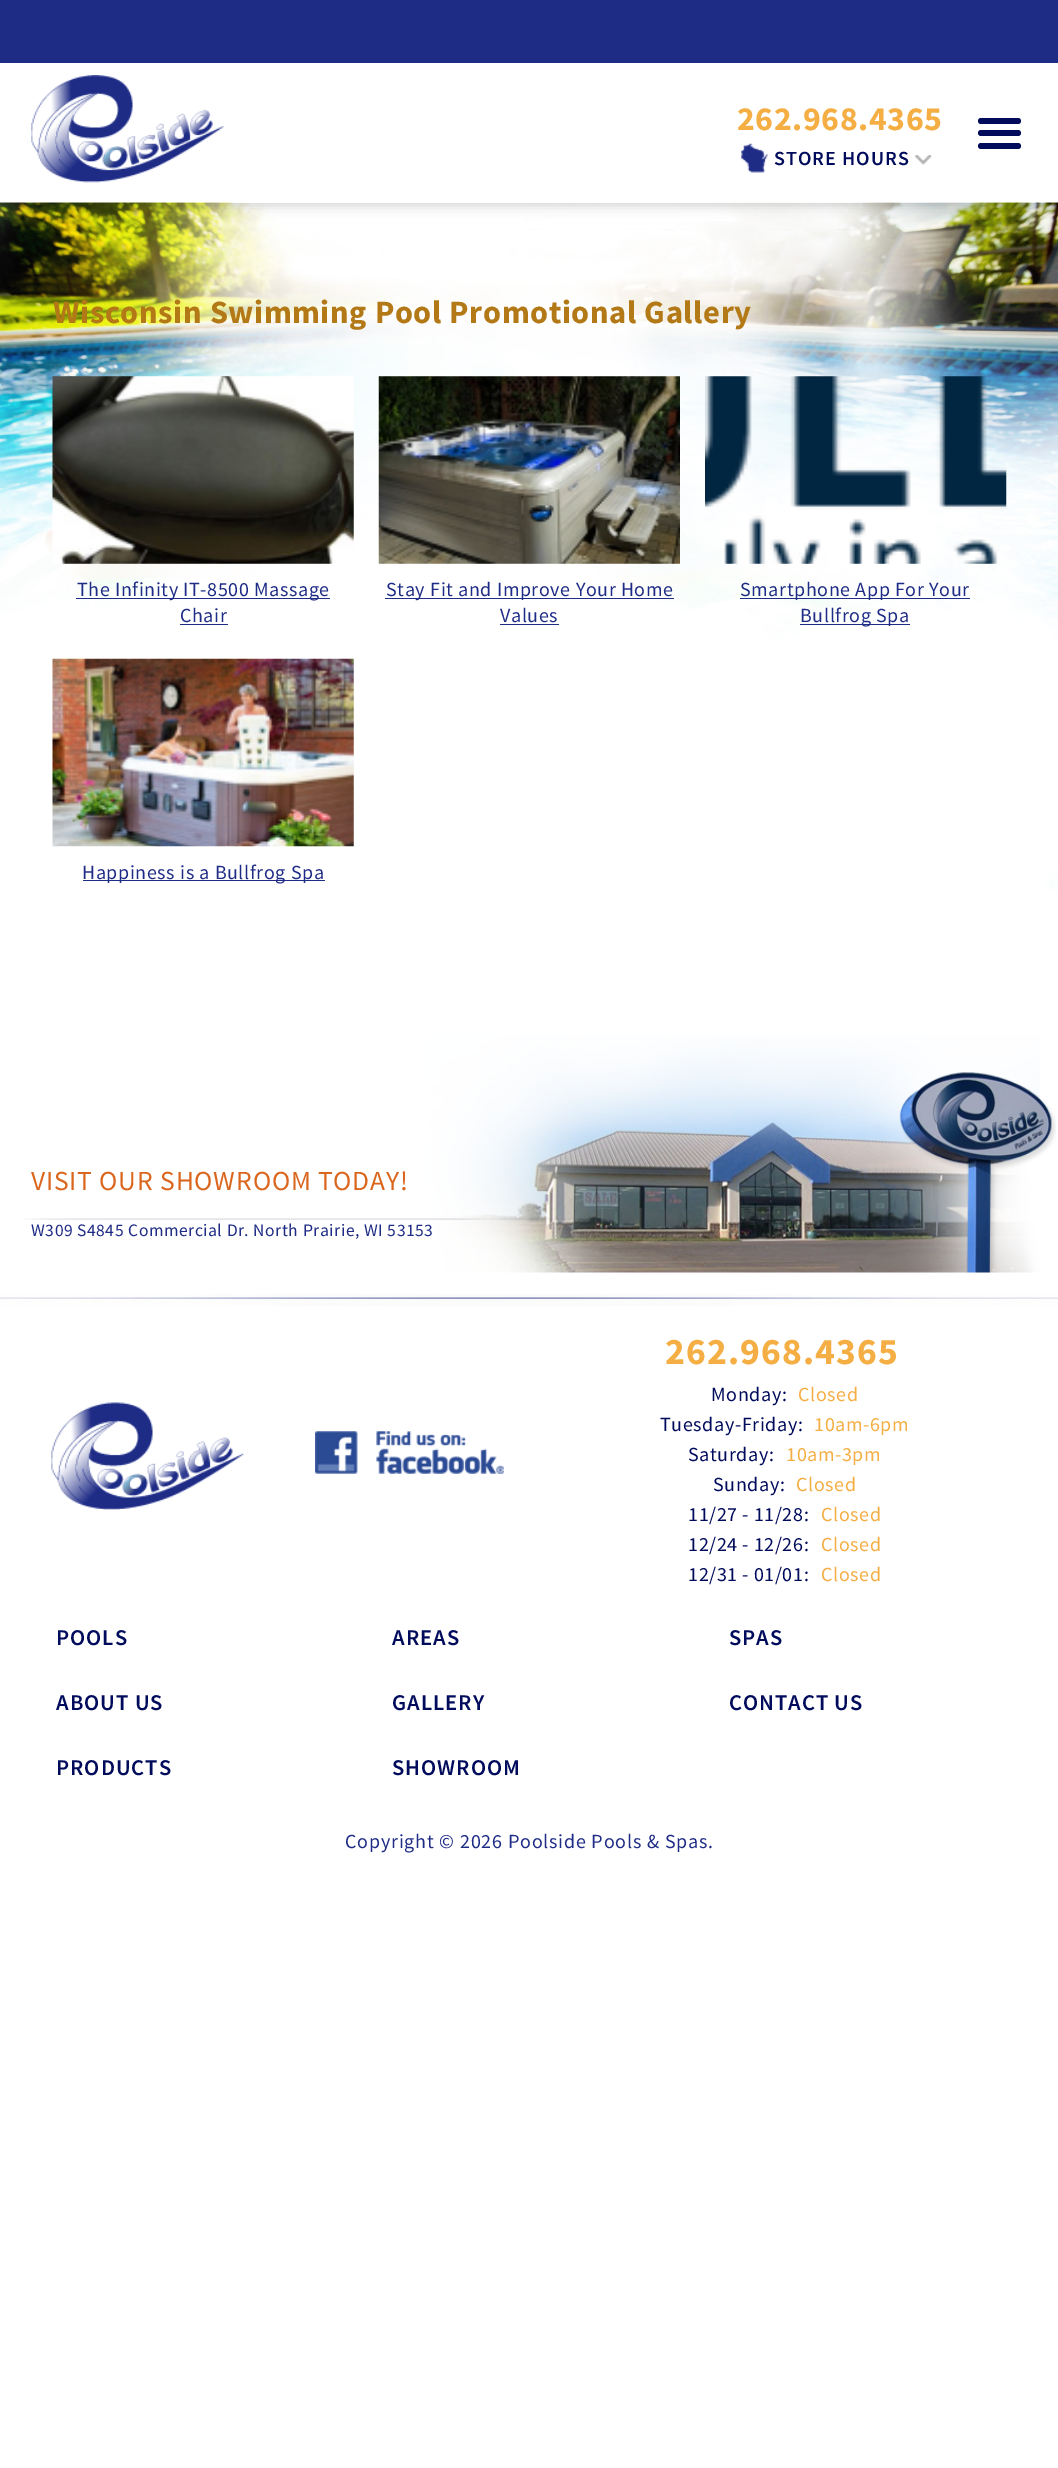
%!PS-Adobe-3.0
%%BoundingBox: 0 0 1058 2468
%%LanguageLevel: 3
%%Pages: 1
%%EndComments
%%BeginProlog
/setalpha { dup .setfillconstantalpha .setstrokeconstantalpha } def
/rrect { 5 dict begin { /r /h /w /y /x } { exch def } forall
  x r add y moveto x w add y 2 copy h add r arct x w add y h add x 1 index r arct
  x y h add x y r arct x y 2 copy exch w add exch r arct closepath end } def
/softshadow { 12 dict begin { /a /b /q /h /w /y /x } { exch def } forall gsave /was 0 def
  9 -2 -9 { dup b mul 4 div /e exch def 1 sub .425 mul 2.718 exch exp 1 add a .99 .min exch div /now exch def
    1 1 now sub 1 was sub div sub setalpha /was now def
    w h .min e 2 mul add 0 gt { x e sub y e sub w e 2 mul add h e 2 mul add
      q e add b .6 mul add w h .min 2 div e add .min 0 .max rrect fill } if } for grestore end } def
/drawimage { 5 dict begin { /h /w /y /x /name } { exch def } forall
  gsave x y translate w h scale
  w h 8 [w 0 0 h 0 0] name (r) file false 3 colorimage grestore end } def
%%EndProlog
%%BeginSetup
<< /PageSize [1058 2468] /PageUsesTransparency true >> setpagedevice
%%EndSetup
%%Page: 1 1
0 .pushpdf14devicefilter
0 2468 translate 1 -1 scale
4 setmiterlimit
1 setgray
0 0 1058 2468 rectfill
(images/4.raw) 0 202 1058 687 drawimage
gsave
newpath 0 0 moveto 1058 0 lineto 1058 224 lineto 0 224 lineto closepath 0 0 moveto 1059 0 lineto 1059 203 lineto 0 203 lineto closepath eoclip newpath
0 setgray
0 3 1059 202 0 6 0.2 softshadow
grestore
0.122 0.173 0.525 setrgbcolor
0 0 1058 63 rectfill
(images/1.raw) 31 75 193 108 drawimage
(images/2.raw) 741 143 27 30 drawimage
(images/3.raw) 915 155 17 10 drawimage
0 0.043 0.357 setrgbcolor
978 130 43 6 3 rrect fill
978 118 43 6 3 rrect fill
978 143 43 6 3 rrect fill
(images/5.raw) 52 376 302 188 drawimage
0.122 0.173 0.525 setrgbcolor
76 598 254 1 rectfill
180 624 48 1 rectfill
(images/6.raw) 378 376 302 188 drawimage
385 598 289 1 rectfill
500 624 59 1 rectfill
(images/7.raw) 705 376 302 188 drawimage
740 598 230 1 rectfill
800 624 110 1 rectfill
(images/8.raw) 52 658 302 189 drawimage
83 880 242 1 rectfill
(images/9.raw) 22 1035 1034 238 drawimage
(images/10.raw) 0 1294 1058 12 drawimage
(images/11.raw) 51 1402 193 108 drawimage
(images/12.raw) 315 1431 189 43 drawimage
/SourceSansPro-Bold [33.75 0 0 -33.75 0 0] selectfont
0.957 0.682 0.263 setrgbcolor
737 130 moveto 0.6 0 (262.968.4365) ashow
/SourceSansPro-SemiBold [20 0 0 -20 0 0] selectfont
0 0.043 0.357 setrgbcolor
774 165 moveto 1 0 (STORE HOURS) ashow
/SourceSansPro-Bold [32.5 0 0 -32.5 0 0] selectfont
0.702 0.475 0.086 setrgbcolor
53 323 moveto 0.5 0 32 0.6 0 (Wisconsin Swimming Pool Promotional Gallery) awidthshow
/SourceSansPro-Regular [20 0 0 -20 0 0] selectfont
0.122 0.173 0.525 setrgbcolor
77 596 moveto 0.6 0 (The Infinity IT-8500 Massage) ashow
180 622 moveto 0.6 0 (Chair) ashow
386 596 moveto 0.6 0 (Stay Fit and Improve Your Home) ashow
500 622 moveto 0.6 0 (Values) ashow
740 596 moveto 0.6 0 (Smartphone App For Your) ashow
800 622 moveto 0.6 0 (Bullfrog Spa) ashow
82 879 moveto 0.6 0 (Happiness is a Bullfrog Spa) ashow
/SourceSansPro-Regular [27.5 0 0 -27.5 0 0] selectfont
0.855 0.4 0.118 setrgbcolor
31 1190 moveto 0.8 0 (VISIT OUR SHOWROOM TODAY!) ashow
/SourceSansPro-Regular [17.5 0 0 -17.5 0 0] selectfont
0.122 0.173 0.525 setrgbcolor
31 1236 moveto 0.55 0 (W309 S4845 Commercial Dr. North Prairie, WI 53153) ashow
/SourceSansPro-Bold [37.5 0 0 -37.5 0 0] selectfont
0.957 0.682 0.263 setrgbcolor
665 1364 moveto 1.1 0 (262.968.4365) ashow
/SourceSansPro-Regular [20 0 0 -20 0 0] selectfont
0 0.043 0.357 setrgbcolor
711 1401 moveto 0.6 0 (Monday:) ashow
0.957 0.682 0.263 setrgbcolor
798 1401 moveto 0.6 0 (Closed) ashow
0 0.043 0.357 setrgbcolor
660 1431 moveto 0.6 0 (Tuesday-Friday:) ashow
0.957 0.682 0.263 setrgbcolor
814 1431 moveto 0.6 0 (10am-6pm) ashow
0 0.043 0.357 setrgbcolor
688 1461 moveto 0.6 0 (Saturday:) ashow
0.957 0.682 0.263 setrgbcolor
786 1461 moveto 0.6 0 (10am-3pm) ashow
0 0.043 0.357 setrgbcolor
713 1491 moveto 0.6 0 (Sunday:) ashow
0.957 0.682 0.263 setrgbcolor
796 1491 moveto 0.6 0 (Closed) ashow
0 0.043 0.357 setrgbcolor
688 1521 moveto 0.6 0 (11/27 - 11/28:) ashow
0.957 0.682 0.263 setrgbcolor
821 1521 moveto 0.6 0 (Closed) ashow
0 0.043 0.357 setrgbcolor
688 1551 moveto 0.6 0 (12/24 - 12/26:) ashow
0.957 0.682 0.263 setrgbcolor
821 1551 moveto 0.6 0 (Closed) ashow
0 0.043 0.357 setrgbcolor
688 1581 moveto 0.6 0 (12/31 - 01/01:) ashow
0.957 0.682 0.263 setrgbcolor
821 1581 moveto 0.6 0 (Closed) ashow
/SourceSansPro-SemiBold [22.5 0 0 -22.5 0 0] selectfont
0 0.043 0.357 setrgbcolor
56 1645 moveto 1 0 (POOLS) ashow
392 1645 moveto 1 0 (AREAS) ashow
729 1645 moveto 1 0 (SPAS) ashow
56 1710 moveto 1 0 (ABOUT US) ashow
392 1710 moveto 1 0 (GALLERY) ashow
729 1710 moveto 1 0 (CONTACT US) ashow
56 1775 moveto 1 0 (PRODUCTS) ashow
392 1775 moveto 1 0 (SHOWROOM) ashow
/SourceSansPro-Regular [20 0 0 -20 0 0] selectfont
0.122 0.173 0.525 setrgbcolor
345 1848 moveto 0.8 0 (Copyright © 2026 Poolside Pools & Spas.) ashow
.poppdf14devicefilter showpage
%%EOF
